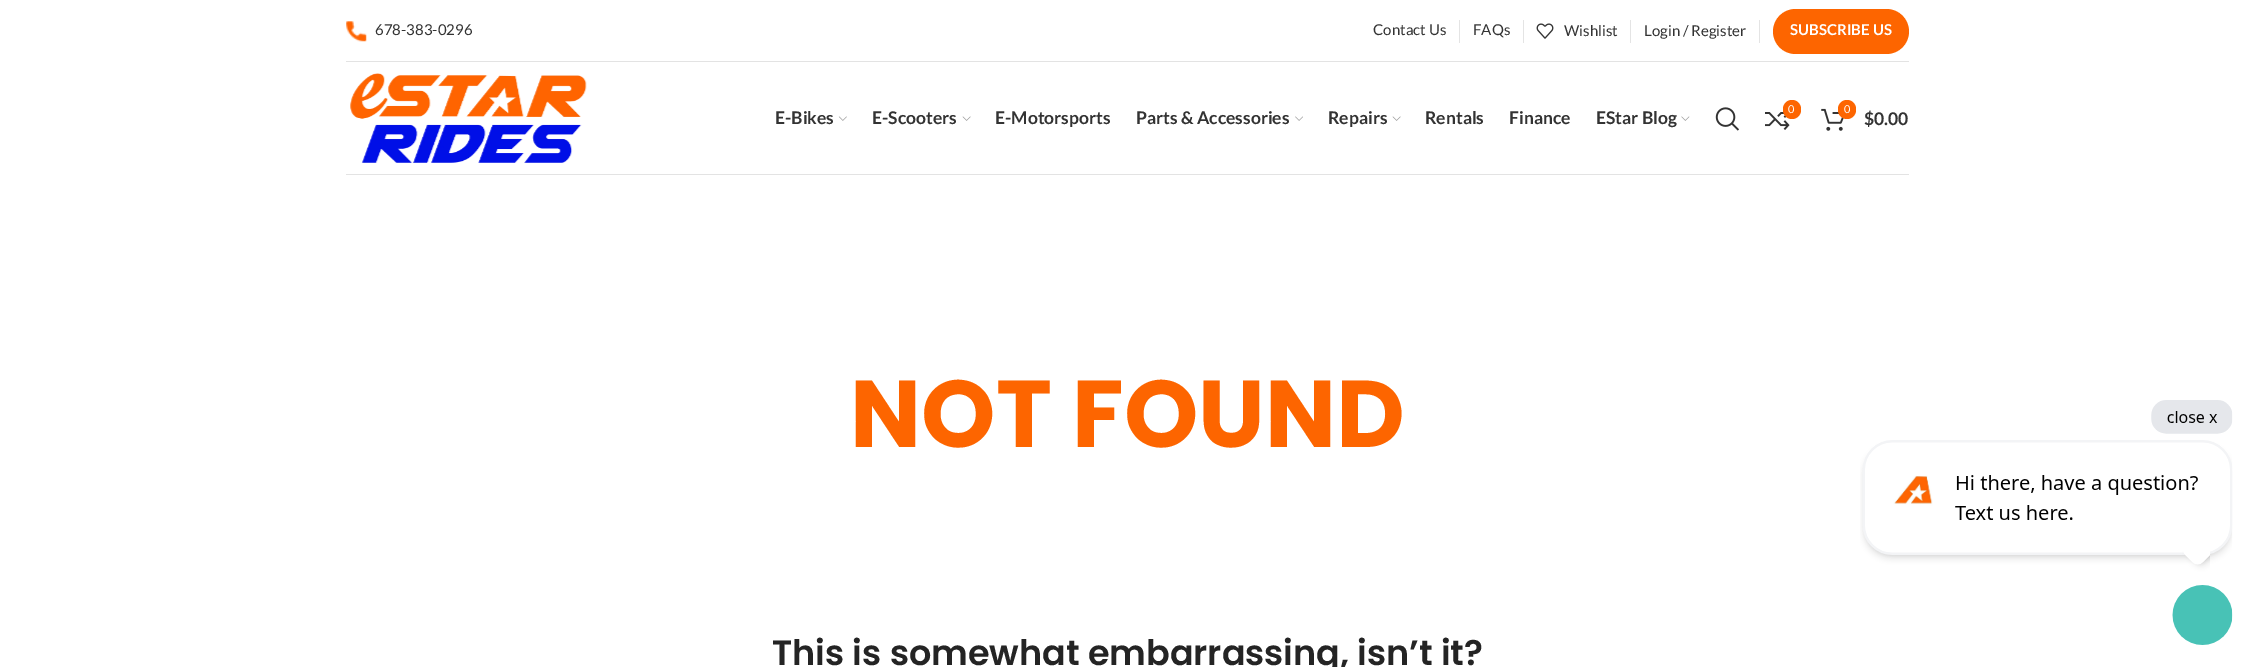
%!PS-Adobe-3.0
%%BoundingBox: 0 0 2255 667
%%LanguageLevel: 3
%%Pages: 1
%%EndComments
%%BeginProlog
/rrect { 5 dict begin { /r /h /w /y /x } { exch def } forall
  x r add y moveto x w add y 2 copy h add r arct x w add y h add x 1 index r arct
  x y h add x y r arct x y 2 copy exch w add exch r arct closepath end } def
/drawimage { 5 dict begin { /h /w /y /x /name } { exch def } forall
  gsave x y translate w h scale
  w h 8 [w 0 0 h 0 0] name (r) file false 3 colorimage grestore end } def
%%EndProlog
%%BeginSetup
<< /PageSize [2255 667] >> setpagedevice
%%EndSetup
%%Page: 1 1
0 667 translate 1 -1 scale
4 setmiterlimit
1 setgray
0 0 2255 667 rectfill
0.89 setgray
346 61 1563 1 rectfill
(images/1.raw) 346 21 21 21 drawimage
0.894 setgray
1459 20 1 23 rectfill
1523 20 1 23 rectfill
(images/2.raw) 1536 23 18 16 drawimage
1630 20 1 23 rectfill
1759 20 1 23 rectfill
0.992 0.396 0 setrgbcolor
1773 9 136 45 22.5 rrect fill
0.89 setgray
346 174 1563 1 rectfill
(images/3.raw) 350 73 237 90 drawimage
(images/4.raw) 838 116 9 5 drawimage
(images/5.raw) 962 116 9 5 drawimage
(images/6.raw) 1295 116 8 5 drawimage
(images/5.raw) 1392 116 9 5 drawimage
(images/7.raw) 1681 116 9 5 drawimage
(images/8.raw) 1715 107 24 24 drawimage
(images/9.raw) 1765 112 25 18 drawimage
0.992 0.396 0 setrgbcolor
1783 100 18 19 9 rrect fill
(images/10.raw) 1821 108 23 23 drawimage
1838 100 18 19 9 rrect fill
(images/11.raw) 1860 400 373 245 drawimage
/Lato-Regular [15 0 0 -15 0 0] selectfont
0.2 setgray
375 35 moveto (678-383-0296) show
1373 35 moveto (Contact Us) show
1473 35 moveto (FAQs) show
1564 36 moveto (Wishlist) show
1644 36 moveto (Login / Register) show
/Lato-Bold [15 0 0 -15 0 0] selectfont
1 setgray
1790 35 moveto (SUBSCRIBE US) show
/Lato-Bold [17.5 0 0 -17.5 0 0] selectfont
0.2 setgray
775 124 moveto (E-Bikes) show
872 124 moveto (E-Scooters) show
995 124 moveto (E-Motorsports) show
1136 124 moveto (Parts & Accessories) show
1328 124 moveto (Repairs) show
1425 124 moveto (Rentals) show
1509 124 moveto (Finance) show
1596 124 moveto (EStar Blog) show
/Lato-Regular [11 0 0 -11 0 0] selectfont
1 setgray
1788 113 moveto (0) show
1844 113 moveto (0) show
/Lato-Bold [17.5 0 0 -17.5 0 0] selectfont
0.2 setgray
1864 125 moveto ($0.00) show
/Poppins-Bold [94.75 0 0 -94.75 0 0] selectfont
0.992 0.396 0 setrgbcolor
850 447 moveto (NOT FOUND) show
/Poppins-SemiBold [35 0 0 -35 0 0] selectfont
0.141 setgray
772 665 moveto (This is somewhat embarrassing, isn’t it?) show
showpage
%%EOF
